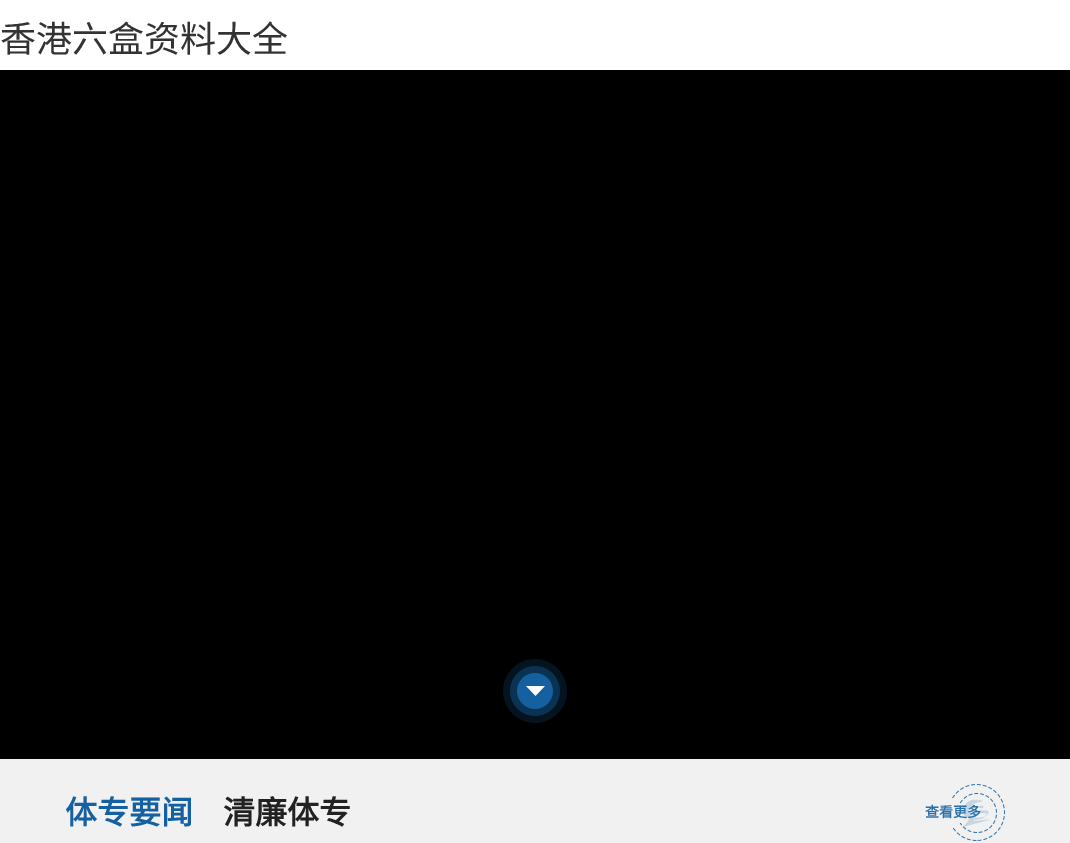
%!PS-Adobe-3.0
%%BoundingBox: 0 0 1070 843
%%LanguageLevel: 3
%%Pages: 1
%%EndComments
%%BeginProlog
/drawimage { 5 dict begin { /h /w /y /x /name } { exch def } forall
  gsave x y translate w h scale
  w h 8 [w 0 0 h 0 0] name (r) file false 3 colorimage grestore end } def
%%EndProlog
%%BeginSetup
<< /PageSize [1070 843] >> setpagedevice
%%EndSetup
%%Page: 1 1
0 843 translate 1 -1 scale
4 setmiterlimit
1 setgray
0 0 1070 843 rectfill
0 setgray
0 70 1070 689 rectfill
(images/1.raw) 503 659 64 64 drawimage
0.945 setgray
0 759 1070 84 rectfill
(images/2.raw) 952 784 53 57 drawimage
/NotoSansCJKSC-Regular [36 0 0 -36 0 0] selectfont
0.2 setgray
0 52 moveto (香港六盒资料大全) show
/NotoSansCJKSC-Bold [32 0 0 -32 0 0] selectfont
0.078 0.376 0.627 setrgbcolor
65 824 moveto (体专要闻) show
0.133 setgray
223 824 moveto (清廉体专) show
/NotoSansCJKSC-Bold [14 0 0 -14 0 0] selectfont
0.161 0.443 0.678 setrgbcolor
925 817 moveto (查看更多) show
showpage
%%EOF
